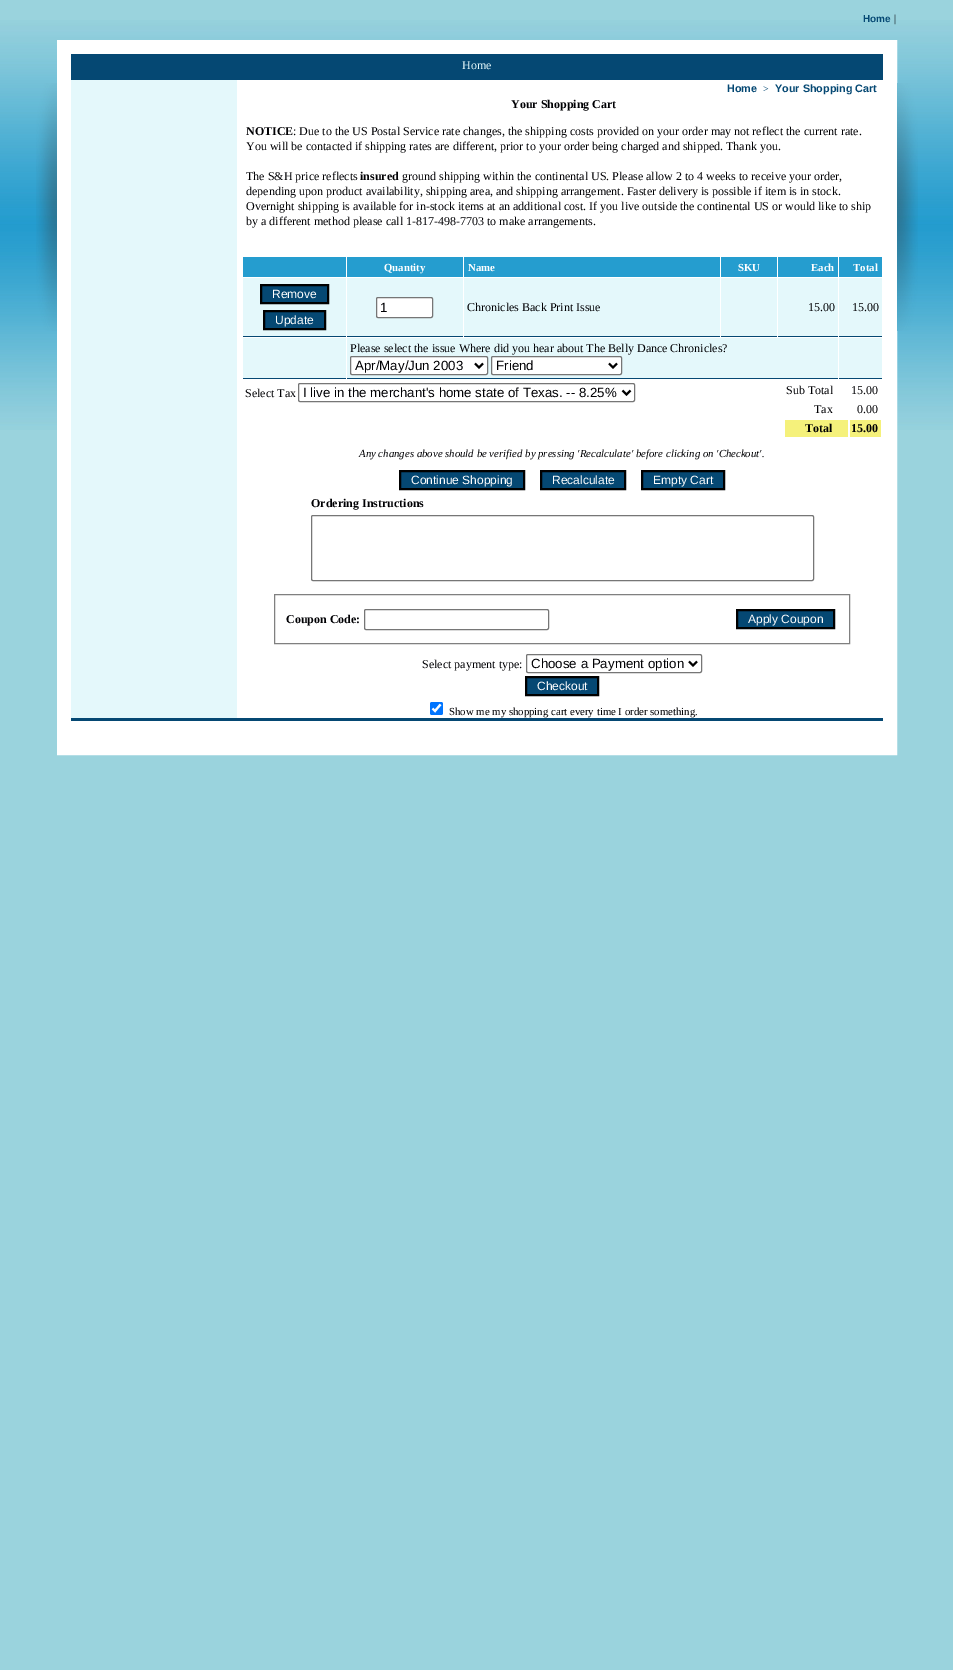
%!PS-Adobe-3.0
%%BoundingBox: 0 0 953 1670
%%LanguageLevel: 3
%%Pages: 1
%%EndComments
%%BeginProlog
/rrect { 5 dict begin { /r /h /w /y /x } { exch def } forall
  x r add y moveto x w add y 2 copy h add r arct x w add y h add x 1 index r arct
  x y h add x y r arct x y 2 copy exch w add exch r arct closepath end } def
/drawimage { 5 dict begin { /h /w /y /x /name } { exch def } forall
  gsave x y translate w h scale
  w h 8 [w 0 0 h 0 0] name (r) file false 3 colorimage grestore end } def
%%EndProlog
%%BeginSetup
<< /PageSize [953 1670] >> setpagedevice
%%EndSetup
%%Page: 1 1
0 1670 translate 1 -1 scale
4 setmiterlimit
0.604 0.827 0.867 setrgbcolor
0 0 953 1670 rectfill
(images/1.raw) 0 20 953 410 drawimage
(images/2.raw) 36 83 21 248 drawimage
1 setgray
14 setlinewidth
64 47 826 701 rectstroke
0.02 0.282 0.451 setrgbcolor
71 54 812 26 rectfill
0.894 0.973 0.984 setrgbcolor
71 80 166 638 rectfill
1 setgray
237 80 646 638 rectfill
0.145 0.616 0.812 setrgbcolor
243 257 103 20 rectfill
347 257 116 20 rectfill
464 257 256 20 rectfill
721 257 56 20 rectfill
778 257 60 20 rectfill
839 257 43 20 rectfill
0.894 0.973 0.984 setrgbcolor
243 278 103 58 rectfill
0.02 0.282 0.451 setrgbcolor
243 336 103 1 rectfill
newpath 261 285 moveto 328 285 lineto 328 303 lineto 261 303 lineto closepath gsave fill grestore
0 setgray
2 setlinewidth
stroke
0.02 0.282 0.451 setrgbcolor
newpath 264 311 moveto 325 311 lineto 325 329 lineto 264 329 lineto closepath gsave fill grestore
0 setgray
stroke
0.894 0.973 0.984 setrgbcolor
347 278 116 58 rectfill
0.02 0.282 0.451 setrgbcolor
347 336 116 1 rectfill
1 setgray
376.5 297.5 56 20 1.5 rrect gsave fill grestore
0.463 setgray
1 setlinewidth
stroke
0.894 0.973 0.984 setrgbcolor
464 278 256 58 rectfill
0.02 0.282 0.451 setrgbcolor
464 336 256 1 rectfill
0.894 0.973 0.984 setrgbcolor
721 278 56 58 rectfill
0.02 0.282 0.451 setrgbcolor
721 336 56 1 rectfill
0.894 0.973 0.984 setrgbcolor
778 278 60 58 rectfill
0.02 0.282 0.451 setrgbcolor
778 336 60 1 rectfill
0.894 0.973 0.984 setrgbcolor
839 278 43 58 rectfill
0.02 0.282 0.451 setrgbcolor
839 336 43 1 rectfill
0.894 0.973 0.984 setrgbcolor
243 338 103 40 rectfill
0.02 0.282 0.451 setrgbcolor
243 378 103 1 rectfill
0.894 0.973 0.984 setrgbcolor
347 338 491 40 rectfill
0.02 0.282 0.451 setrgbcolor
347 378 491 1 rectfill
1 setgray
350.5 356.5 137 18 1.5 rrect gsave fill grestore
0.463 setgray
stroke
0 setgray
2 setlinewidth
newpath 475 363.5 moveto 479 367.5 lineto 483 363.5 lineto stroke
1 setgray
491.5 356.5 130 18 1.5 rrect gsave fill grestore
0.463 setgray
1 setlinewidth
stroke
0 setgray
2 setlinewidth
newpath 609 363.5 moveto 613 367.5 lineto 617 363.5 lineto stroke
0.894 0.973 0.984 setrgbcolor
839 338 43 40 rectfill
0.02 0.282 0.451 setrgbcolor
839 378 43 1 rectfill
0.463 setgray
1 setlinewidth
298.5 383.5 336 18 1.5 rrect stroke
0 setgray
2 setlinewidth
newpath 622.5 390.5 moveto 626.5 394.5 lineto 630.5 390.5 lineto stroke
0.961 0.945 0.482 setrgbcolor
785 420 63 17 rectfill
850 420 31 17 rectfill
0.02 0.282 0.451 setrgbcolor
newpath 400 471 moveto 524 471 lineto 524 489 lineto 400 489 lineto closepath gsave fill grestore
0 setgray
stroke
0.02 0.282 0.451 setrgbcolor
newpath 541 471 moveto 625 471 lineto 625 489 lineto 541 489 lineto closepath gsave fill grestore
0 setgray
stroke
0.02 0.282 0.451 setrgbcolor
newpath 642 471 moveto 724 471 lineto 724 489 lineto 642 489 lineto closepath gsave fill grestore
0 setgray
stroke
0.463 setgray
1 setlinewidth
311.5 515.5 502 65 1.5 rrect stroke
0.502 setgray
274.5 594.5 575 49 rectstroke
0.463 setgray
364.5 609.5 184 20 1.5 rrect stroke
0.02 0.282 0.451 setrgbcolor
newpath 737 610 moveto 834 610 lineto 834 628 lineto 737 628 lineto closepath gsave fill grestore
0 setgray
2 setlinewidth
stroke
0.463 setgray
1 setlinewidth
526.5 654.5 175 18 1.5 rrect stroke
0 setgray
2 setlinewidth
newpath 689 661.5 moveto 693 665.5 lineto 697 661.5 lineto stroke
0.02 0.282 0.451 setrgbcolor
newpath 526 677 moveto 598 677 lineto 598 695 lineto 526 695 lineto closepath gsave fill grestore
0 setgray
stroke
0 0.459 1 setrgbcolor
430 702 13 13 2 rrect fill
1 setgray
2.1 setlinewidth
newpath 432.5 708.5 moveto 435 711 lineto 440.5 704.5 lineto stroke
0.02 0.282 0.451 setrgbcolor
71 718 812 3 rectfill
1 setgray
71 721 812 20 rectfill
(images/3.raw) 897 83 21 248 drawimage
/LiberationSans-Bold [10 0 0 -10 0 0] selectfont
0.02 0.282 0.451 setrgbcolor
863 22 moveto (Home) show
/LiberationSerif-Regular [10.8 0 0 -10.8 0 0] selectfont
0 0 0.012 setrgbcolor
894 22 moveto (|) show
/LiberationSerif-Regular [12 0 0 -12 0 0] selectfont
0.894 0.973 0.984 setrgbcolor
462 69 moveto (Home) show
/LiberationSans-Bold [10.8 0 0 -10.8 0 0] selectfont
0.02 0.282 0.451 setrgbcolor
727 92 moveto (Home) show
/LiberationSerif-Regular [10 0 0 -10 0 0] selectfont
763 92 moveto (>) show
/LiberationSans-Bold [10.8 0 0 -10.8 0 0] selectfont
775 92 moveto (Your Shopping Cart) show
/LiberationSerif-Bold [12 0 0 -12 0 0] selectfont
0 0 0.012 setrgbcolor
511 108 moveto (Your Shopping Cart) show
246 135 moveto (NOTICE) show
/LiberationSerif-Regular [12 0 0 -12 0 0] selectfont
293 135 moveto (: Due to the US Postal Service rate changes, the shipping costs provided on your order may not reflect the current rate.) show
246 150 moveto (You will be contacted if shipping rates are different, prior to your order being charged and shipped. Thank you.) show
246 180 moveto (The S&H price reflects) show
/LiberationSerif-Bold [12 0 0 -12 0 0] selectfont
360 180 moveto (insured) show
/LiberationSerif-Regular [12 0 0 -12 0 0] selectfont
402 180 moveto (ground shipping within the continental US. Please allow 2 to 4 weeks to receive your order,) show
246 195 moveto (depending upon product availability, shipping area, and shipping arrangement. Faster delivery is possible if item is in stock.) show
246 210 moveto (Overnight shipping is available for in-stock items at an additional cost. If you live outside the continental US or would like to ship) show
246 225 moveto (by a different method please call 1-817-498-7703 to make arrangements.) show
/LiberationSerif-Bold [10.8 0 0 -10.8 0 0] selectfont
1 setgray
384 271 moveto (Quantity) show
468 271 moveto (Name) show
738 271 moveto (SKU) show
811 271 moveto (Each) show
853 271 moveto (Total) show
/LiberationSans-Regular [12 0 0 -12 0 0] selectfont
272 298 moveto (Remove) show
275 324 moveto (Update) show
/LiberationSans-Regular [13.3 0 0 -13.3 0 0] selectfont
0 0 0.012 setrgbcolor
380 312 moveto (1) show
/LiberationSerif-Regular [12 0 0 -12 0 0] selectfont
467 311 moveto (Chronicles Back Print Issue) show
808 311 moveto (15.00) show
852 311 moveto (15.00) show
350 352 moveto (Please select the issue Where did you hear about The Belly Dance Chronicles?) show
/LiberationSans-Regular [13.3 0 0 -13.3 0 0] selectfont
355 370 moveto (Apr/May/Jun 2003) show
496 370 moveto (Friend) show
/LiberationSerif-Regular [12 0 0 -12 0 0] selectfont
245 397 moveto (Select Tax) show
/LiberationSans-Regular [13.3 0 0 -13.3 0 0] selectfont
303 397 moveto (I live in the merchant's home state of Texas. -- 8.25%) show
/LiberationSerif-Regular [12 0 0 -12 0 0] selectfont
786 394 moveto (Sub Total) show
851 394 moveto (15.00) show
814 413 moveto (Tax) show
857 413 moveto (0.00) show
/LiberationSerif-Bold [12 0 0 -12 0 0] selectfont
805 432 moveto (Total) show
851 432 moveto (15.00) show
/LiberationSerif-Italic [10.8 0 0 -10.8 0 0] selectfont
359 457 moveto (Any changes above should be verified by pressing 'Recalculate' before clicking on 'Checkout'.) show
/LiberationSans-Regular [12 0 0 -12 0 0] selectfont
1 setgray
411 484 moveto (Continue Shopping) show
552 484 moveto (Recalculate) show
653 484 moveto (Empty Cart) show
/LiberationSerif-Bold [12 0 0 -12 0 0] selectfont
0 0 0.012 setrgbcolor
311 507 moveto (Ordering Instructions) show
286 623 moveto (Coupon Code:) show
/LiberationSans-Regular [12 0 0 -12 0 0] selectfont
1 setgray
748 623 moveto (Apply Coupon) show
/LiberationSerif-Regular [12 0 0 -12 0 0] selectfont
0 0 0.012 setrgbcolor
422 668 moveto (Select payment type:) show
/LiberationSans-Regular [13.3 0 0 -13.3 0 0] selectfont
531 668 moveto (Choose a Payment option) show
/LiberationSans-Regular [12 0 0 -12 0 0] selectfont
1 setgray
537 690 moveto (Checkout) show
/LiberationSerif-Regular [10.8 0 0 -10.8 0 0] selectfont
0 0 0.012 setrgbcolor
449 715 moveto (Show me my shopping cart every time I order something.) show
showpage
%%EOF
